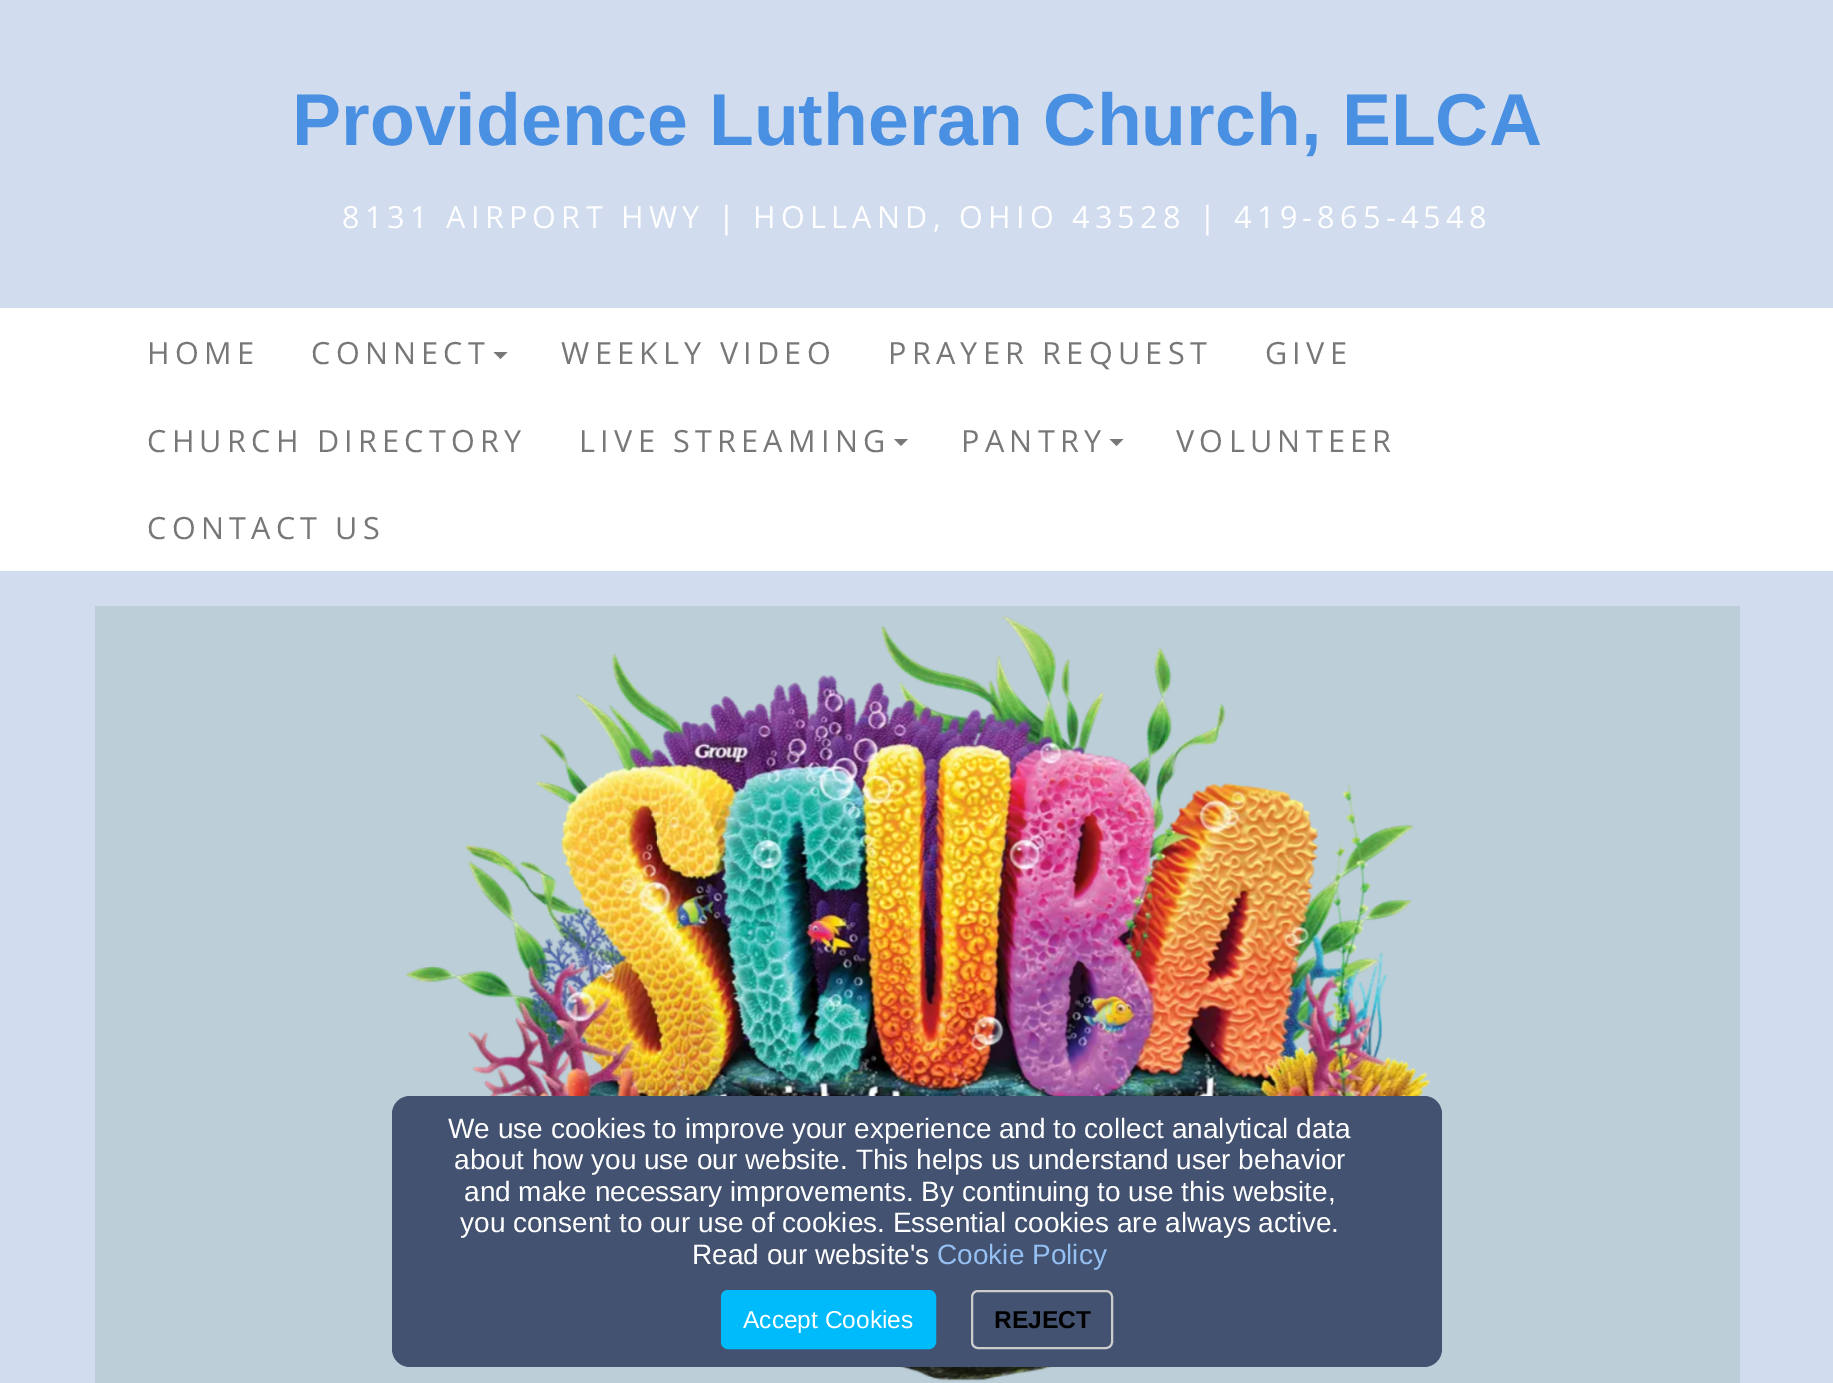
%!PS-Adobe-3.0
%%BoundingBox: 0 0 1833 1383
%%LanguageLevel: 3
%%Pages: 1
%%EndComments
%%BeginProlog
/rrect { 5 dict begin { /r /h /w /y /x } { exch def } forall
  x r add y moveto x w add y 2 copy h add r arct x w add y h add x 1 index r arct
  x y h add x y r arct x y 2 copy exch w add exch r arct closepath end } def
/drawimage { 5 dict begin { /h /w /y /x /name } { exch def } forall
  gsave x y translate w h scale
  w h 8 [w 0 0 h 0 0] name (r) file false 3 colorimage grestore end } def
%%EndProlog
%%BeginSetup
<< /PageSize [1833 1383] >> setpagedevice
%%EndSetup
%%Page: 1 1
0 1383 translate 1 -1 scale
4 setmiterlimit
0.82 0.863 0.933 setrgbcolor
0 0 1833 1383 rectfill
1 setgray
0 308 1833 263 rectfill
0.467 setgray
newpath 493.5 352 moveto 507.5 352 lineto 500.5 359 lineto closepath fill
newpath 894 439 moveto 908 439 lineto 901 446 lineto closepath fill
newpath 1109.5 439 moveto 1123.5 439 lineto 1116.5 446 lineto closepath fill
0.737 0.812 0.847 setrgbcolor
95 606 1645 777 rectfill
(images/1.raw) 406 615 1025 766 drawimage
0.263 0.322 0.439 setrgbcolor
392 1096 1050 271 18 rrect fill
0 0.733 0.988 setrgbcolor
722 1291 213 57 6 rrect gsave fill grestore
2 setlinewidth
stroke
0.8 setgray
972 1291 140 57 6 rrect stroke
/LiberationSans-Bold [73.5 0 0 -73.5 0 0] selectfont
0.29 0.565 0.886 setrgbcolor
292 145 moveto (Providence Lutheran Church, ELCA) show
/OpenSans-Regular [30.6 0 0 -30.6 0 0] selectfont
1 setgray
342 228 moveto 5.25 0 (8131 AIRPORT HWY | HOLLAND, OHIO 43528 | 419-865-4548) ashow
0.467 setgray
147 364 moveto 5.25 0 (HOME) ashow
311 364 moveto 5.25 0 (CONNECT) ashow
561 364 moveto 5.25 0 (WEEKLY VIDEO) ashow
888 364 moveto 5.25 0 (PRAYER REQUEST) ashow
1265 364 moveto 5.25 0 (GIVE) ashow
147 452 moveto 5.25 0 (CHURCH DIRECTORY) ashow
579 452 moveto 5.25 0 (LIVE STREAMING) ashow
961 452 moveto 5.25 0 (PANTRY) ashow
1176 452 moveto 5.25 0 (VOLUNTEER) ashow
147 539 moveto 5.25 0 (CONTACT US) ashow
/LiberationSans-Regular [28 0 0 -28 0 0] selectfont
1 setgray
448 1138 moveto (We use cookies to improve your experience and to collect analytical data) show
454 1169 moveto (about how you use our website. This helps us understand user behavior) show
464 1201 moveto (and make necessary improvements. By continuing to use this website,) show
460 1232 moveto (you consent to our use of cookies. Essential cookies are always active.) show
692 1264 moveto (Read our website's) show
0.58 0.753 0.953 setrgbcolor
937 1264 moveto (Cookie Policy) show
/LiberationSans-Regular [24.5 0 0 -24.5 0 0] selectfont
1 setgray
743 1328 moveto (Accept Cookies) show
/LiberationSans-Bold [24.5 0 0 -24.5 0 0] selectfont
0 setgray
994 1328 moveto (REJECT) show
showpage
%%EOF
